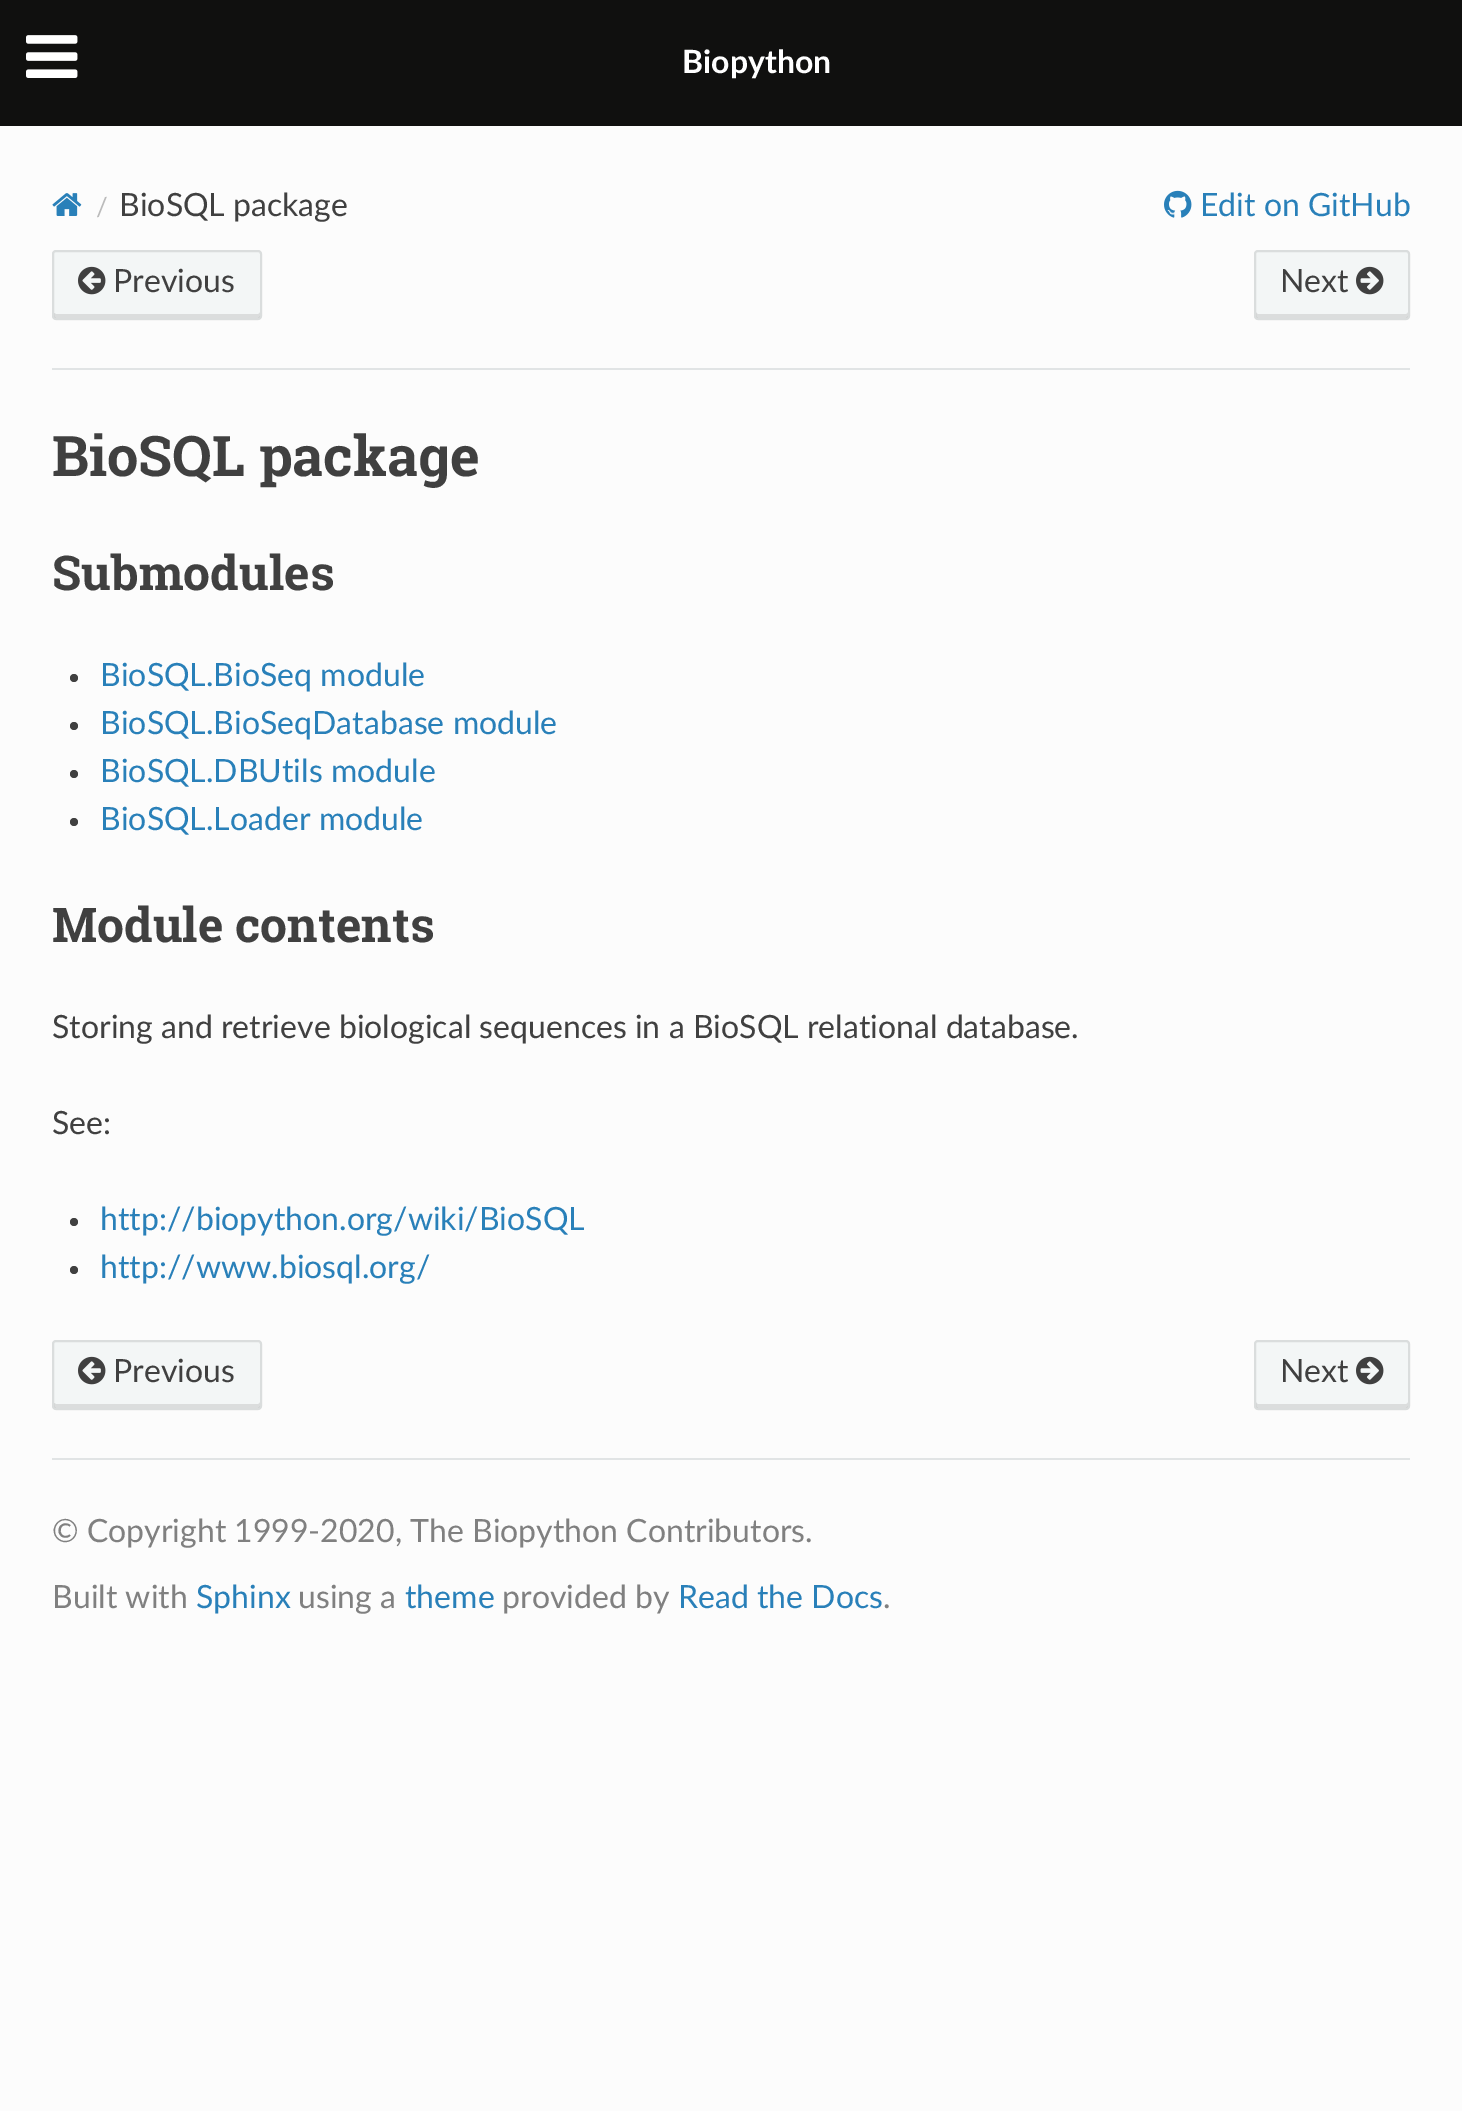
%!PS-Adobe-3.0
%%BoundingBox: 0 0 1462 2111
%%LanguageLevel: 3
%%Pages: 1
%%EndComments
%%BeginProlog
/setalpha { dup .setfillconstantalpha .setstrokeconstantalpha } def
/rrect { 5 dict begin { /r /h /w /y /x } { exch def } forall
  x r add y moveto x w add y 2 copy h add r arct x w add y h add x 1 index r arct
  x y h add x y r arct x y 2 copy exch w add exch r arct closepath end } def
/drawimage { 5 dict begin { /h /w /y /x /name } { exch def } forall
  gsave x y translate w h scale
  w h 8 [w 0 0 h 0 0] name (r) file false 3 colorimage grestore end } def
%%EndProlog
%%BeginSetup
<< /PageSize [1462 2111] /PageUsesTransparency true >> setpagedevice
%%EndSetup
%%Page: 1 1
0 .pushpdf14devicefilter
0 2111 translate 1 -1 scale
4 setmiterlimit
0.988 setgray
0 0 1462 2111 rectfill
0.063 0.063 0.059 setrgbcolor
0 0 1462 126 rectfill
(images/1.raw) 26 35 52 43 drawimage
(images/2.raw) 52 193 30 23 drawimage
(images/3.raw) 1164 190 28 28 drawimage
0.953 0.965 0.965 setrgbcolor
52 250 210 70 4 rrect fill
0.859 0.867 0.867 setrgbcolor
newpath 54 312 moveto 54 316 lineto 54 317 55 318 56 318 curveto 258 318 lineto 259 318 260 317 260 316 curveto 260 312 lineto 260 313 259 314 258 314 curveto 56 314 lineto 54 313 lineto closepath fill
0.1 setalpha
0 setgray
2 setlinewidth
53 251 208 68 3 rrect stroke
1 setalpha
(images/4.raw) 78 266 28 29 drawimage
0.953 0.965 0.965 setrgbcolor
1254 250 156 70 4 rrect fill
0.859 0.867 0.867 setrgbcolor
newpath 1256 312 moveto 1256 316 lineto 1256 317 1257 318 1258 318 curveto 1406 318 lineto 1407 318 1408 317 1408 316 curveto 1408 312 lineto 1408 313 1407 314 1406 314 curveto 1258 314 lineto 1257 314 1256 313 1256 312 curveto closepath fill
0.1 setalpha
0 setgray
1255 251 154 68 3 rrect stroke
1 setalpha
(images/5.raw) 1356 266 28 29 drawimage
0.882 0.894 0.898 setrgbcolor
52 368 1358 2 rectfill
0.251 setgray
newpath 74 678 4 0 360 arc closepath fill
newpath 74 726 4 0 360 arc closepath fill
newpath 74 774 4 0 360 arc closepath fill
newpath 74 822 4 0 360 arc closepath fill
newpath 74 1222 4 0 360 arc closepath fill
newpath 74 1270 4 0 360 arc closepath fill
0.953 0.965 0.965 setrgbcolor
52 1340 210 70 4 rrect fill
0.859 0.867 0.867 setrgbcolor
newpath 54 1402 moveto 54 1406 lineto 54 1407 55 1408 56 1408 curveto 258 1408 lineto 259 1408 260 1407 260 1406 curveto 260 1402 lineto 260 1403 259 1404 258 1404 curveto 56 1404 lineto 54 1403 lineto closepath fill
0.1 setalpha
0 setgray
53 1341 208 68 3 rrect stroke
1 setalpha
(images/4.raw) 78 1356 28 29 drawimage
0.953 0.965 0.965 setrgbcolor
1254 1340 156 70 4 rrect fill
0.859 0.867 0.867 setrgbcolor
newpath 1256 1402 moveto 1256 1406 lineto 1256 1407 1257 1408 1258 1408 curveto 1406 1408 lineto 1407 1408 1408 1407 1408 1406 curveto 1408 1402 lineto 1408 1403 1407 1404 1406 1404 curveto 1258 1404 lineto 1257 1404 1256 1403 1256 1402 curveto closepath fill
0.1 setalpha
0 setgray
1255 1341 154 68 3 rrect stroke
1 setalpha
(images/5.raw) 1356 1356 28 29 drawimage
0.882 0.894 0.898 setrgbcolor
52 1458 1358 2 rectfill
/Lato-Bold [32 0 0 -32 0 0] selectfont
1 setgray
682 73 moveto (Biopython) show
/Lato-Regular [26 0 0 -26 0 0] selectfont
0.733 setgray
96 216 moveto (/) show
/Lato-Regular [32 0 0 -32 0 0] selectfont
0.251 setgray
119 216 moveto (BioSQL package) show
0.161 0.502 0.725 setrgbcolor
1200 216 moveto (Edit on GitHub) show
0.251 setgray
113 292 moveto (Previous) show
1280 292 moveto (Next) show
/RobotoSlab-Bold [56 0 0 -56 0 0] selectfont
52 476 moveto (BioSQL package) show
/RobotoSlab-Bold [48 0 0 -48 0 0] selectfont
52 590 moveto (Submodules) show
/Lato-Regular [32 0 0 -32 0 0] selectfont
0.161 0.502 0.725 setrgbcolor
100 686 moveto (BioSQL.BioSeq module) show
100 734 moveto (BioSQL.BioSeqDatabase module) show
100 782 moveto (BioSQL.DBUtils module) show
100 830 moveto (BioSQL.Loader module) show
/RobotoSlab-Bold [48 0 0 -48 0 0] selectfont
0.251 setgray
52 942 moveto (Module contents) show
/Lato-Regular [32 0 0 -32 0 0] selectfont
52 1038 moveto (Storing and retrieve biological sequences in a BioSQL relational database.) show
52 1134 moveto (See:) show
0.161 0.502 0.725 setrgbcolor
100 1230 moveto (http://biopython.org/wiki/BioSQL) show
100 1278 moveto (http://www.biosql.org/) show
0.251 setgray
113 1382 moveto (Previous) show
1280 1382 moveto (Next) show
0.502 setgray
52 1542 moveto (© Copyright 1999-2020, The Biopython Contributors.) show
52 1608 moveto (Built with) show
0.161 0.502 0.725 setrgbcolor
196 1608 moveto (Sphinx) show
0.502 setgray
298 1608 moveto (using a) show
0.161 0.502 0.725 setrgbcolor
405 1608 moveto (theme) show
0.502 setgray
502 1608 moveto (provided by) show
0.161 0.502 0.725 setrgbcolor
678 1608 moveto (Read the Docs) show
0.502 setgray
883 1608 moveto (.) show
.poppdf14devicefilter showpage
%%EOF
